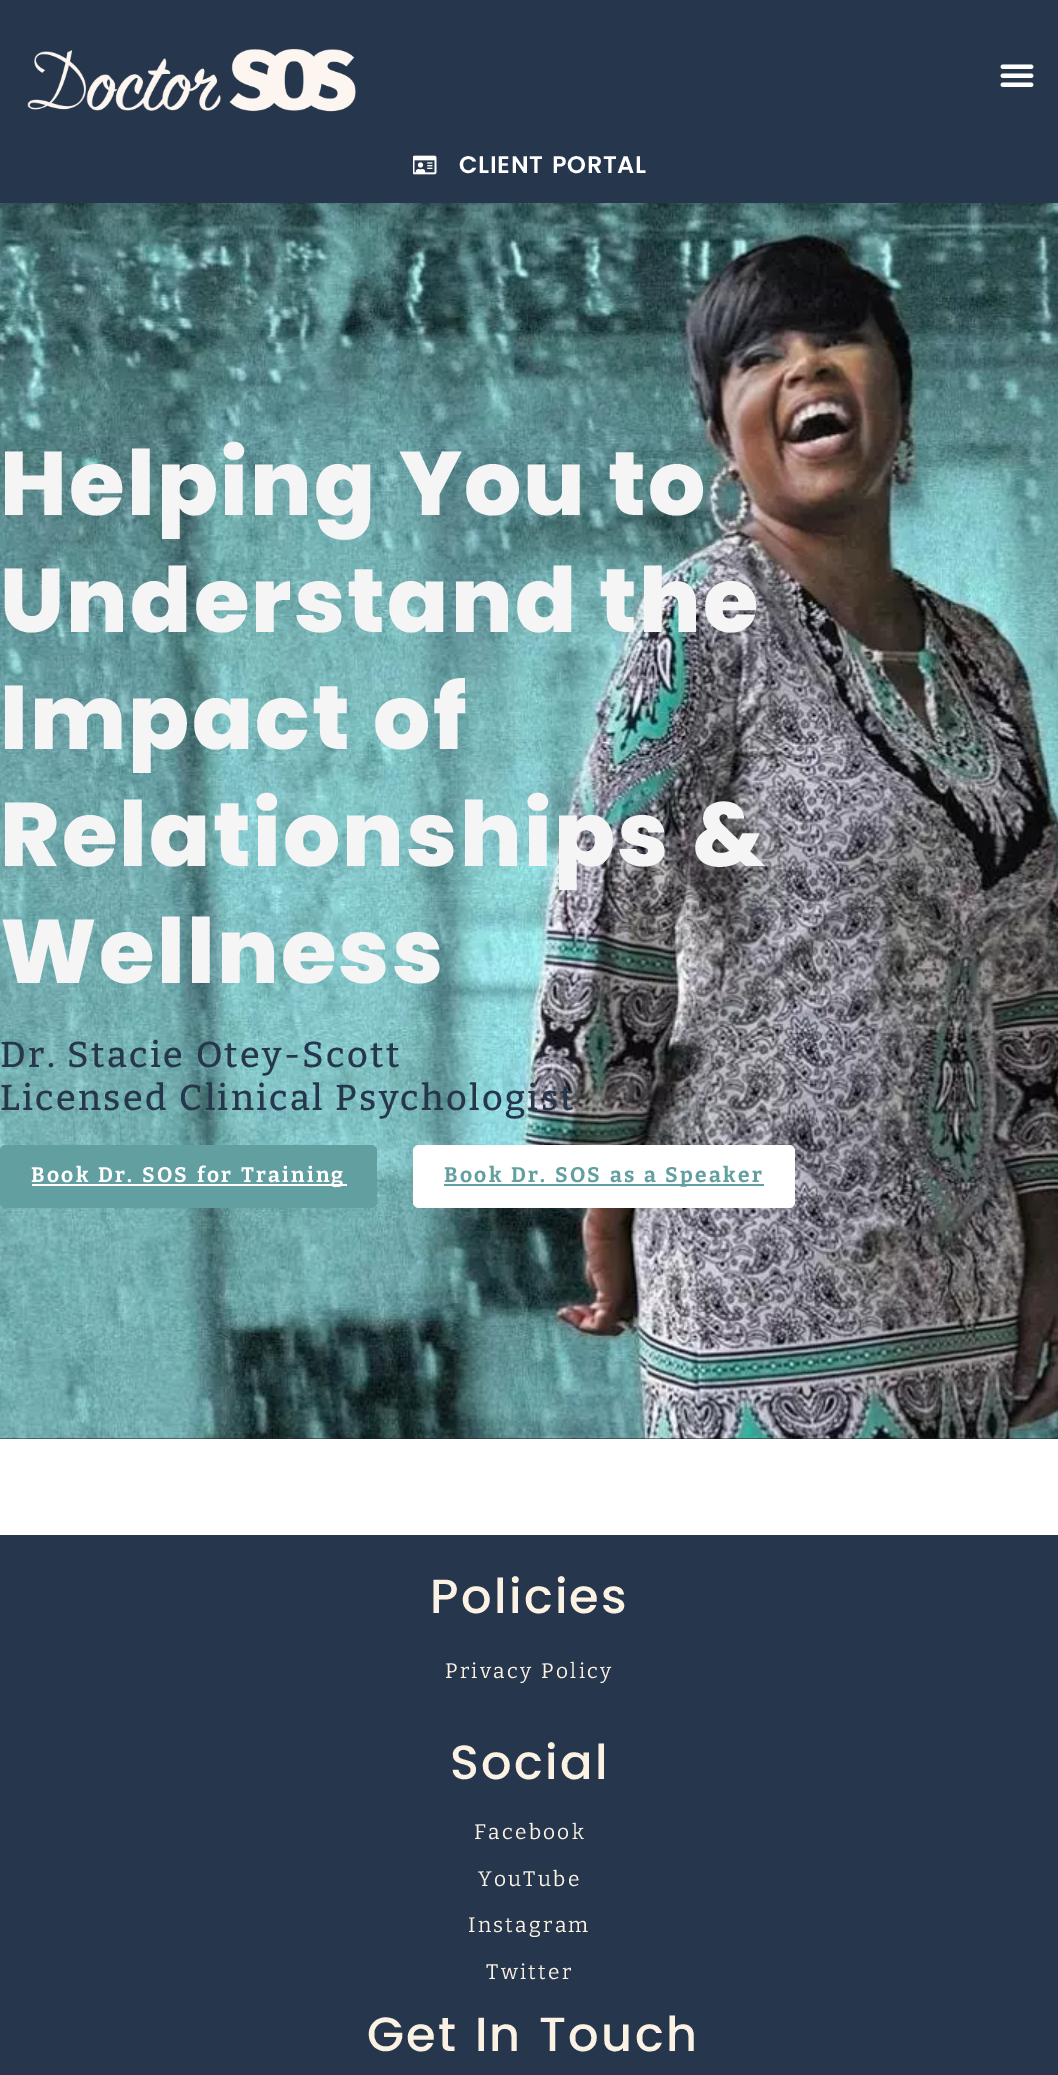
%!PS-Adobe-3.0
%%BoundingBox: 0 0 1058 2075
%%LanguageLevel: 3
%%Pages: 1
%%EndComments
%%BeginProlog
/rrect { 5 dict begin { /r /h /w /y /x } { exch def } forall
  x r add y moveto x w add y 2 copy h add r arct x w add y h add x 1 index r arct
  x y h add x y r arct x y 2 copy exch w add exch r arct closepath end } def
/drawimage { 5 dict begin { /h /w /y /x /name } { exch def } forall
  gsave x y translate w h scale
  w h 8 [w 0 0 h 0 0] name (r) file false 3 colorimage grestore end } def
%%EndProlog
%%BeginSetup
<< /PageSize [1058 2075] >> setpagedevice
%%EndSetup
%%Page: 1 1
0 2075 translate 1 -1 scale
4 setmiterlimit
1 setgray
0 0 1058 2075 rectfill
0.149 0.216 0.302 setrgbcolor
0 0 1058 203 rectfill
(images/1.raw) 27 48 329 64 drawimage
(images/2.raw) 1000 64 34 23 drawimage
(images/3.raw) 413 155 24 20 drawimage
0.122 setgray
0 1438 1058 1 rectfill
(images/4.raw) 0 203 1058 1236 drawimage
0.38 0.624 0.627 setrgbcolor
0 1145 377 63 6 rrect fill
1 setgray
32 1184 315 2 rectfill
413 1145 382 63 6 rrect fill
0.38 0.624 0.627 setrgbcolor
444 1184 320 2 rectfill
0.149 0.216 0.302 setrgbcolor
0 1535 1058 540 rectfill
/Poppins-SemiBold [24 0 0 -24 0 0] selectfont
1 setgray
459 173 moveto 1.5 0 32 0.75 0 (CLIENT PORTAL) awidthshow
/Poppins-ExtraBold [90 0 0 -90 0 0] selectfont
0.961 setgray
0 515 moveto 1.5 0 32 2.25 0 (Helping You to) awidthshow
0 632 moveto 1.5 0 32 2.25 0 (Understand the) awidthshow
0 749 moveto 1.5 0 32 2.25 0 (Impact of) awidthshow
0 866 moveto 1.5 0 32 2.25 0 (Relationships &) awidthshow
0 983 moveto 2.25 0 (Wellness) ashow
/Bitter-Medium [36 0 0 -36 0 0] selectfont
0.149 0.216 0.302 setrgbcolor
0 1067 moveto 1.5 0 32 2.25 0 (Dr. Stacie Otey-Scott) awidthshow
0 1110 moveto 1.5 0 32 2.25 0 (Licensed Clinical Psychologist) awidthshow
/Bitter-Bold [21 0 0 -21 0 0] selectfont
1 setgray
31 1182 moveto 1.5 0 32 2.25 0 (Book Dr. SOS for Training) awidthshow
0.38 0.624 0.627 setrgbcolor
444 1182 moveto 1.5 0 32 2.25 0 (Book Dr. SOS as a Speaker) awidthshow
/Poppins-Medium [48 0 0 -48 0 0] selectfont
0.984 0.949 0.894 setrgbcolor
430 1613 moveto 2.25 0 (Policies) ashow
/Bitter-Regular [21 0 0 -21 0 0] selectfont
445 1678 moveto 1.5 0 32 2.25 0 (Privacy Policy) awidthshow
/Poppins-Medium [48 0 0 -48 0 0] selectfont
450 1779 moveto 2.25 0 (Social) ashow
/Bitter-Regular [21 0 0 -21 0 0] selectfont
474 1839 moveto 2.25 0 (Facebook) ashow
478 1886 moveto 2.25 0 (YouTube) ashow
468 1932 moveto 2.25 0 (Instagram) ashow
486 1979 moveto 2.25 0 (Twitter) ashow
/Poppins-Medium [48 0 0 -48 0 0] selectfont
367 2051 moveto 1.5 0 32 2.25 0 (Get In Touch) awidthshow
showpage
%%EOF
